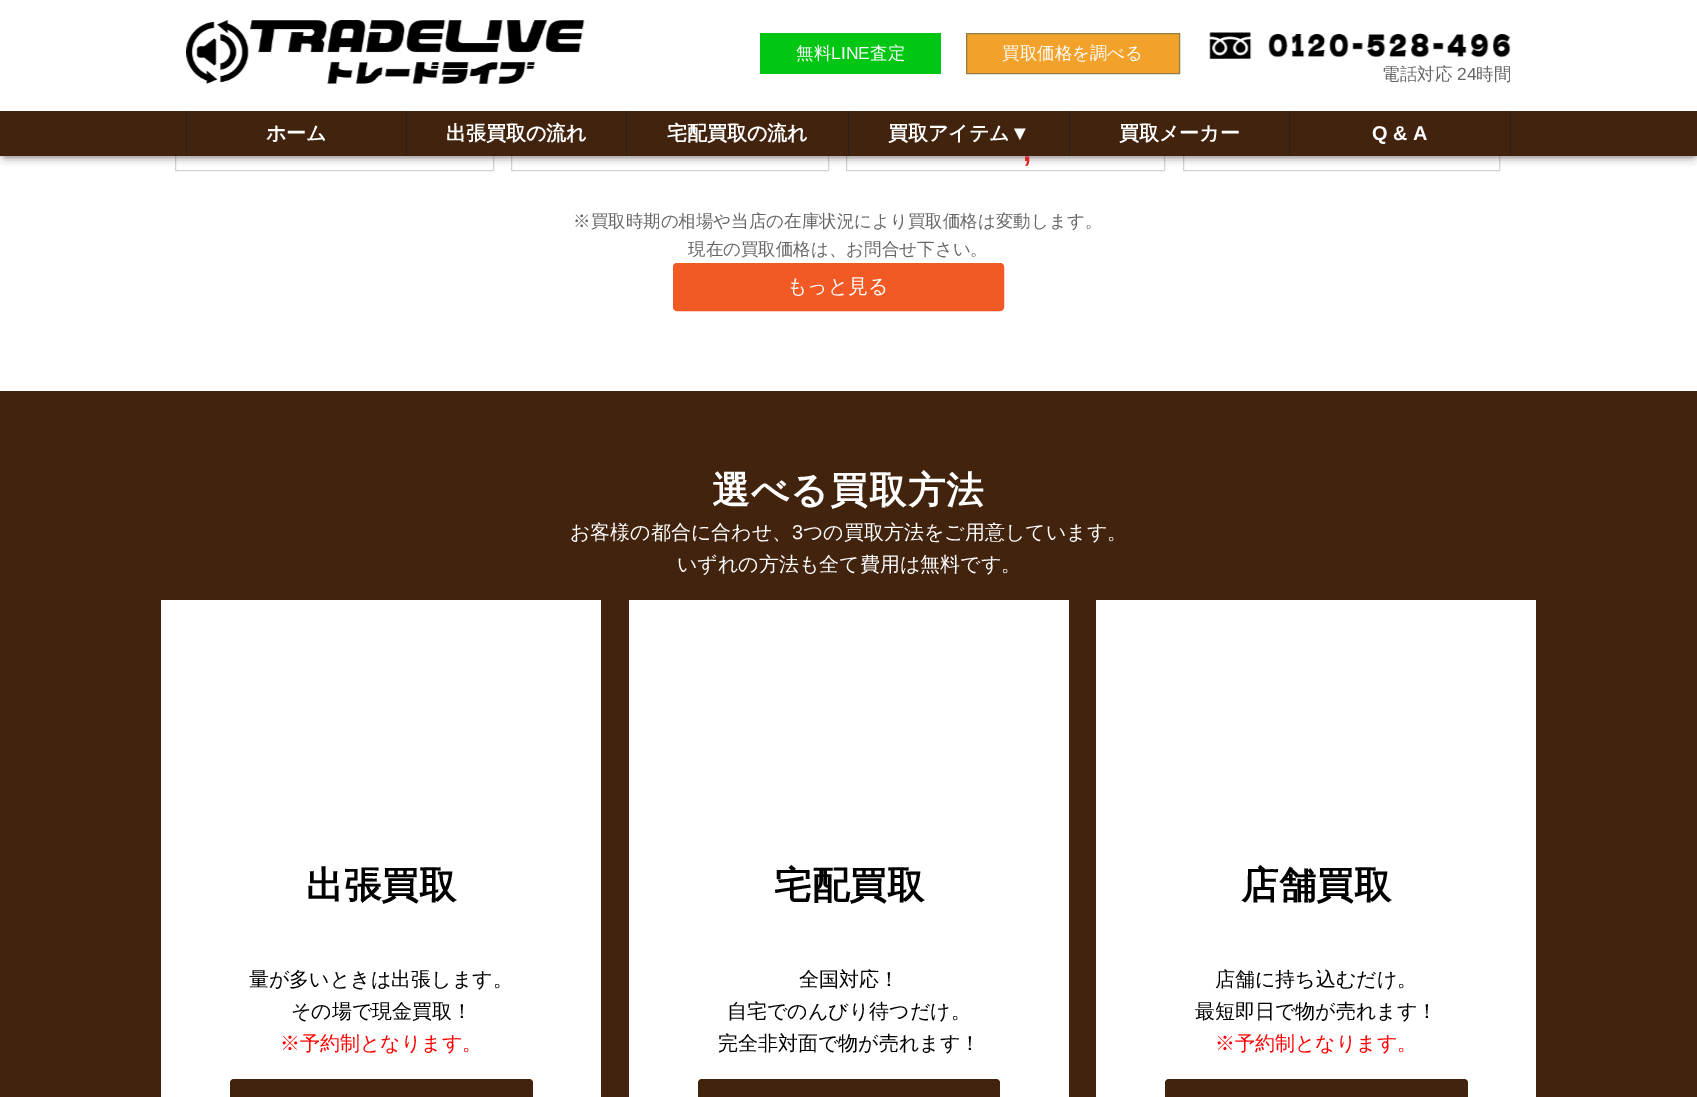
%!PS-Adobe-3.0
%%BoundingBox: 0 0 1697 1097
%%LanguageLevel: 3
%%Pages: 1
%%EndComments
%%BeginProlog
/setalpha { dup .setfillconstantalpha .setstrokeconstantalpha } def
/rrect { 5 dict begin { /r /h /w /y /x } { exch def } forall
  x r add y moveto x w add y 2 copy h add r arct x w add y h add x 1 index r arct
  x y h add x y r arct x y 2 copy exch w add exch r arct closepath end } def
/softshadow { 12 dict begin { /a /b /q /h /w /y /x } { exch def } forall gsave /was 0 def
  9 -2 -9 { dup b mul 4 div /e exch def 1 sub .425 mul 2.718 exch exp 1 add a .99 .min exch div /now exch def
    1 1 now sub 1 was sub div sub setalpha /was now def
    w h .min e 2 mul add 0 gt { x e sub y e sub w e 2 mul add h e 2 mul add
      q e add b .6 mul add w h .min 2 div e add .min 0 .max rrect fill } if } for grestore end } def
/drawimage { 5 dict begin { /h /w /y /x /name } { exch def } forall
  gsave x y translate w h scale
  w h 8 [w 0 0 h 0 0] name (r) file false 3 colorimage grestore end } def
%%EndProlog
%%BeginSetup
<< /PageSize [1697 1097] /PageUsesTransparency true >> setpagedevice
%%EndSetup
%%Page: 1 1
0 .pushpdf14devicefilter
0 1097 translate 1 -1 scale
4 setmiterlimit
1 setgray
0 0 1697 1097 rectfill
0.827 setgray
175.5 -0.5 318 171 rectstroke
511.5 -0.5 317 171 rectstroke
846.5 -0.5 318 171 rectstroke
1183.5 -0.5 316 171 rectstroke
0.157 0.133 0.106 setrgbcolor
5 9 1688 146 0 5 1 softshadow
1 setgray
0 0 1697 111 rectfill
(images/1.raw) 186 20 399 64 drawimage
0.004 0.776 0.078 setrgbcolor
760 33 181 41 rectfill
0.949 0.631 0.169 setrgbcolor
newpath 966.5 33.5 moveto 1179.5 33.5 lineto 1179.5 73.5 lineto 966.5 73.5 lineto closepath gsave fill grestore
0.557 0.498 0.267 setrgbcolor
stroke
(images/2.raw) 1209 32 302 27 drawimage
0.259 0.137 0.055 setrgbcolor
0 111 1697 45 rectfill
0.133 setgray
406 111 1 45 rectfill
186 111 1 45 rectfill
626 111 1 45 rectfill
848 111 1 45 rectfill
1069 111 1 45 rectfill
1289 111 1 45 rectfill
1510 111 1 45 rectfill
0.945 0.353 0.141 setrgbcolor
673.5 263.5 330 47 3.5 rrect gsave fill grestore
stroke
0.259 0.137 0.055 setrgbcolor
0 391 1697 706 rectfill
1 setgray
161 600 440 497 rectfill
0.259 0.137 0.055 setrgbcolor
230 1079 303 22 4 rrect fill
1 setgray
629 600 440 497 rectfill
0.259 0.137 0.055 setrgbcolor
698 1079 302 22 4 rrect fill
1 setgray
1096 600 440 497 rectfill
0.259 0.137 0.055 setrgbcolor
1165 1079 303 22 4 rrect fill
/WenQuanYiZenHei-Medium [17.5 0 0 -17.5 0 0] selectfont
1 setgray
796 59 moveto (無料) show
/LiberationSans-Regular [17.5 0 0 -17.5 0 0] selectfont
831 59 moveto (LINE) show
/WenQuanYiZenHei-Medium [17.5 0 0 -17.5 0 0] selectfont
870 59 moveto (査定) show
1002 59 moveto (買取価格を調べる) show
0.4 setgray
1382 80 moveto (電話対応) show
/LiberationSans-Regular [17.5 0 0 -17.5 0 0] selectfont
1457 80 moveto (24) show
/WenQuanYiZenHei-Medium [17.5 0 0 -17.5 0 0] selectfont
1476 80 moveto (時間) show
/WenQuanYiZenHei-Bold [20 0 0 -20 0 0] selectfont
1 setgray
266 140 moveto (ホーム) show
446 140 moveto (出張買取の流れ) show
667 140 moveto (宅配買取の流れ) show
888 140 moveto (買取アイテム) show
/LiberationSans-Bold [20 0 0 -20 0 0] selectfont
1010 140 moveto (▼) show
/WenQuanYiZenHei-Bold [20 0 0 -20 0 0] selectfont
1119 140 moveto (買取メーカー) show
/LiberationSans-Bold [20 0 0 -20 0 0] selectfont
1372 140 moveto (Q & A) show
/LiberationSans-Bold [30 0 0 -30 0 0] selectfont
0.867 0.149 0.149 setrgbcolor
1023 161 moveto (,) show
/WenQuanYiZenHei-Medium [17.5 0 0 -17.5 0 0] selectfont
0.4 setgray
573 227 moveto (※買取時期の相場や当店の在庫状況により買取価格は変動します。) show
688 255 moveto (現在の買取価格は、お問合せ下さい。) show
/WenQuanYiZenHei-Medium [20 0 0 -20 0 0] selectfont
1 setgray
787 293 moveto (もっと見る) show
/WenQuanYiZenHei-Bold [37.5 0 0 -37.5 0 0] selectfont
712 503 moveto 1.25 0 (選べる買取方法) ashow
/WenQuanYiZenHei-Medium [20 0 0 -20 0 0] selectfont
570 539 moveto (お客様の都合に合わせ、) show
/LiberationSans-Regular [20 0 0 -20 0 0] selectfont
792 539 moveto (3) show
/WenQuanYiZenHei-Medium [20 0 0 -20 0 0] selectfont
803 539 moveto (つの買取方法をご用意しています。) show
677 571 moveto (いずれの方法も全て費用は無料です。) show
/WenQuanYiZenHei-Bold [37.5 0 0 -37.5 0 0] selectfont
0 setgray
306 898 moveto (出張買取) show
/WenQuanYiZenHei-Medium [20 0 0 -20 0 0] selectfont
249 986 moveto (量が多いときは出張します。) show
291 1018 moveto (その場で現金買取！) show
1 0 0 setrgbcolor
280 1050 moveto (※予約制となります。) show
/WenQuanYiZenHei-Bold [37.5 0 0 -37.5 0 0] selectfont
0 setgray
774 898 moveto (宅配買取) show
/WenQuanYiZenHei-Medium [20 0 0 -20 0 0] selectfont
799 986 moveto (全国対応！) show
727 1018 moveto (自宅でのんびり待つだけ。) show
718 1050 moveto (完全非対面で物が売れます！) show
/WenQuanYiZenHei-Bold [37.5 0 0 -37.5 0 0] selectfont
1241 898 moveto (店舗買取) show
/WenQuanYiZenHei-Medium [20 0 0 -20 0 0] selectfont
1215 986 moveto (店舗に持ち込むだけ。) show
1195 1018 moveto (最短即日で物が売れます！) show
1 0 0 setrgbcolor
1215 1050 moveto (※予約制となります。) show
.poppdf14devicefilter showpage
%%EOF
